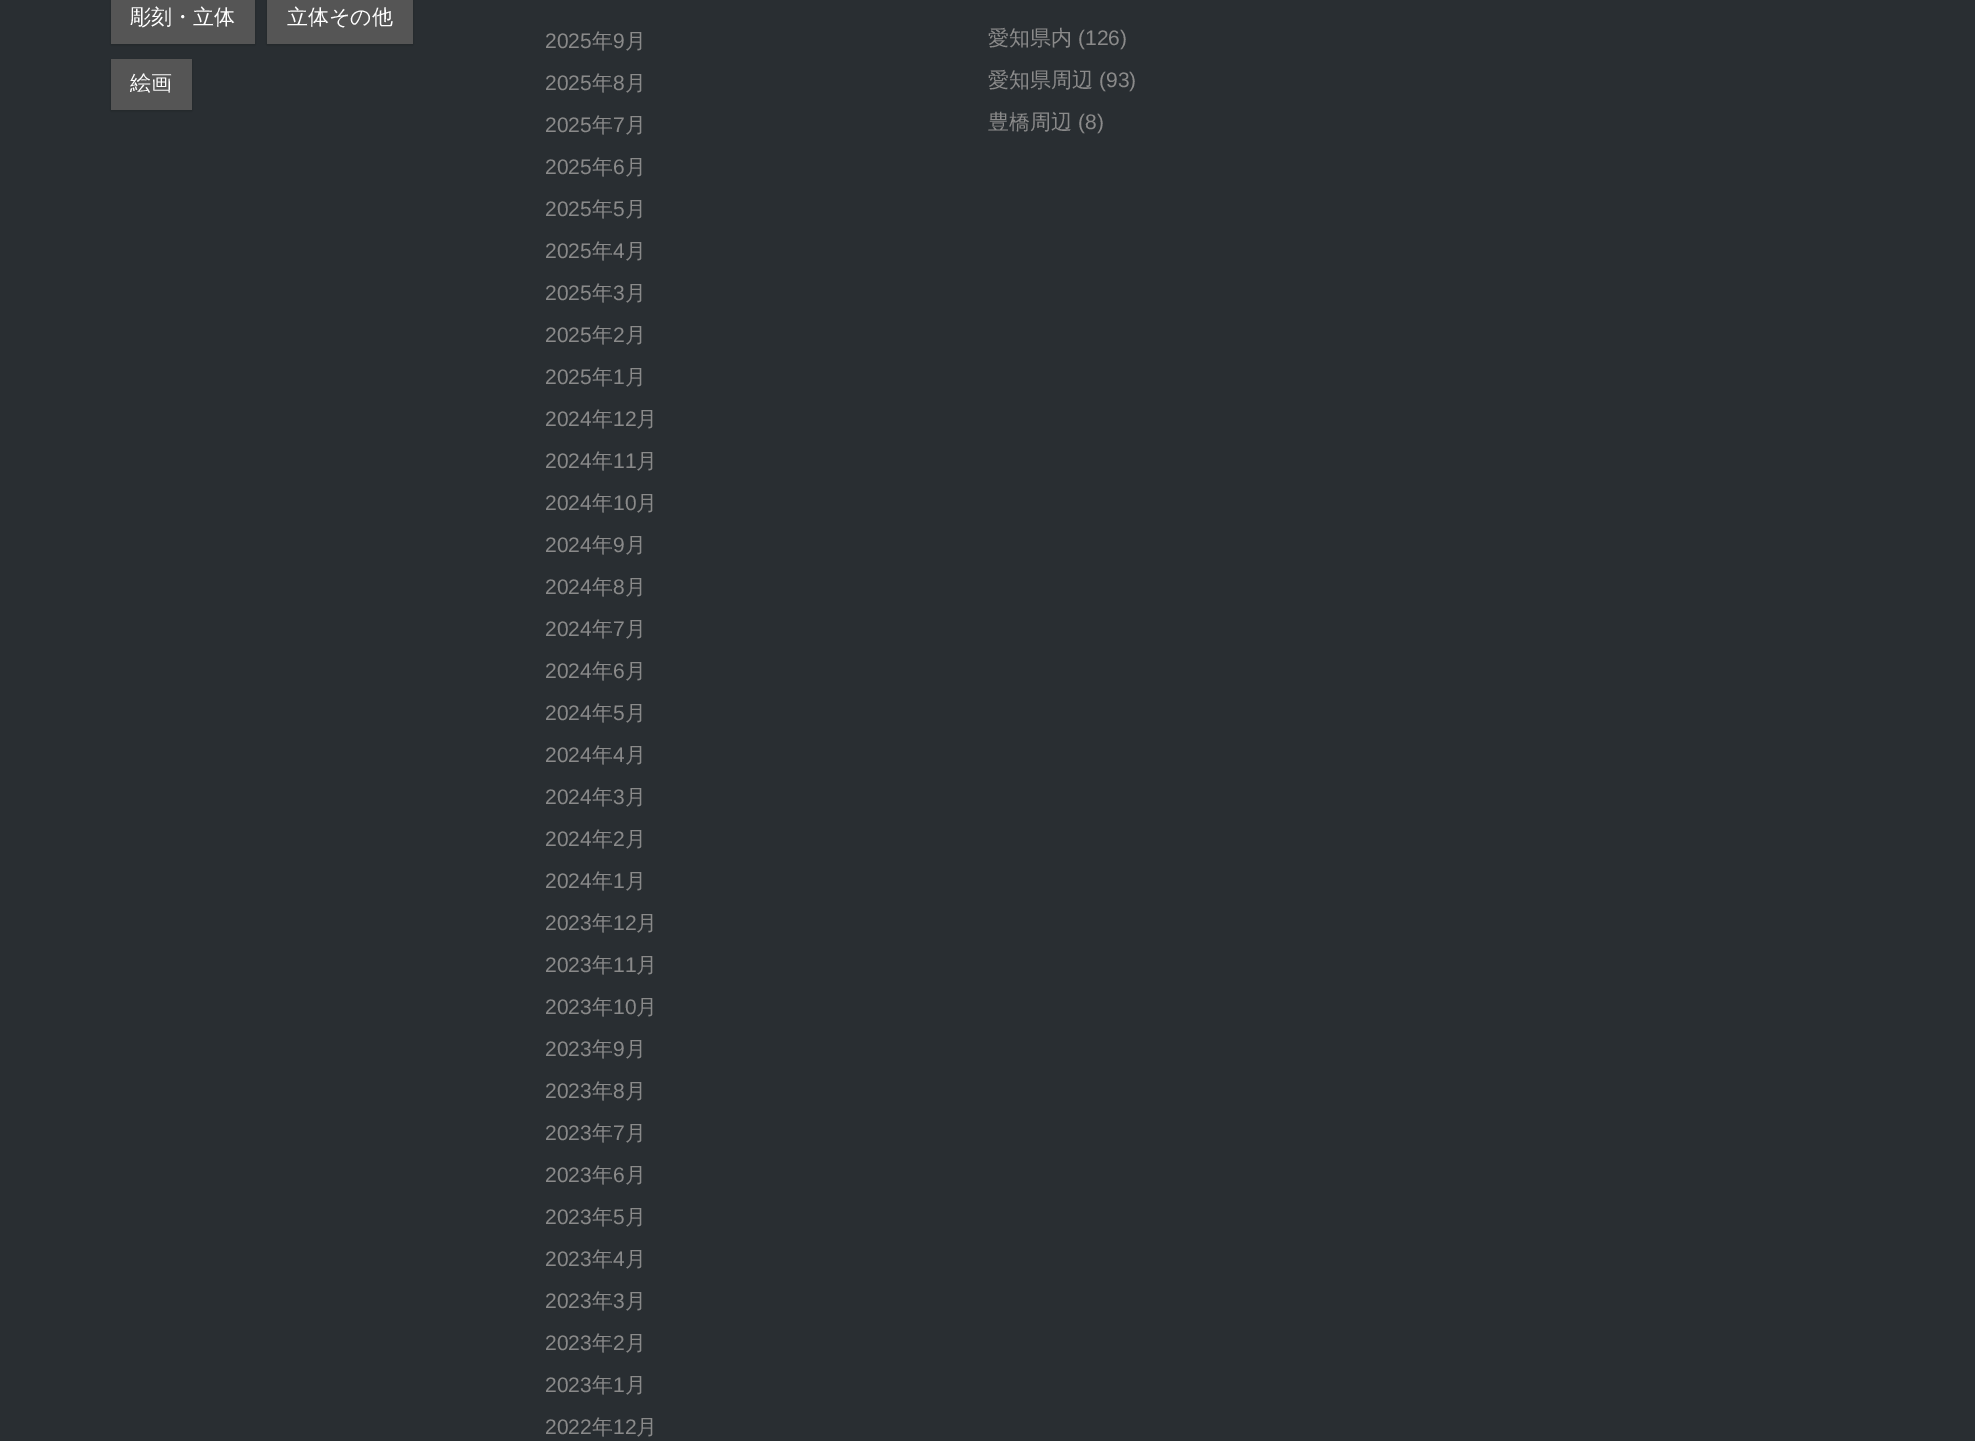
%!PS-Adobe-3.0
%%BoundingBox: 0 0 1975 1441
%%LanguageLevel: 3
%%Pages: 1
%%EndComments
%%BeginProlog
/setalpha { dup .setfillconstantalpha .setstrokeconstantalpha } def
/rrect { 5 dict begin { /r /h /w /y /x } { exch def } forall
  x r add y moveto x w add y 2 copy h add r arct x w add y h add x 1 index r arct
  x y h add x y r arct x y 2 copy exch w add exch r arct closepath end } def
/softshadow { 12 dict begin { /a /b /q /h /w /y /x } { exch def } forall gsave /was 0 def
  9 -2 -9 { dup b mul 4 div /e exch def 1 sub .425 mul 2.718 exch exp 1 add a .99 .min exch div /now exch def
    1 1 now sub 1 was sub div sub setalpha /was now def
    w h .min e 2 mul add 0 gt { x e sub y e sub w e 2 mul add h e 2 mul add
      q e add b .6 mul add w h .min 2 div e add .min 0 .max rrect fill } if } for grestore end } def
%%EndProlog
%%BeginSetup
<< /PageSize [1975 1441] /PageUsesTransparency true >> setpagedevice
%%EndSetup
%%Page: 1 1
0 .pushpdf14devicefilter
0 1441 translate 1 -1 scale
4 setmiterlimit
0.161 0.18 0.196 setrgbcolor
0 0 1975 1441 rectfill
0 setgray
111 -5 144 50 0 1.5 0.2 softshadow
0.333 setgray
111 0 144 44 rectfill
0 setgray
267 -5 146 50 0 1.5 0.2 softshadow
0.333 setgray
267 0 146 44 rectfill
0 setgray
111 60 81 51 0 1.5 0.2 softshadow
0.333 setgray
111 59 81 51 rectfill
/WenQuanYiZenHei-Medium [21 0 0 -21 0 0] selectfont
1 setgray
130 24 moveto (彫刻・立体) show
287 24 moveto (立体その他) show
130 90 moveto (絵画) show
/LiberationSans-Regular [21 0 0 -21 0 0] selectfont
0.541 setgray
545 48 moveto (2025) show
/WenQuanYiZenHei-Medium [21 0 0 -21 0 0] selectfont
592 48 moveto (年) show
/LiberationSans-Regular [21 0 0 -21 0 0] selectfont
613 48 moveto (9) show
/WenQuanYiZenHei-Medium [21 0 0 -21 0 0] selectfont
625 48 moveto (月) show
/LiberationSans-Regular [21 0 0 -21 0 0] selectfont
545 90 moveto (2025) show
/WenQuanYiZenHei-Medium [21 0 0 -21 0 0] selectfont
592 90 moveto (年) show
/LiberationSans-Regular [21 0 0 -21 0 0] selectfont
613 90 moveto (8) show
/WenQuanYiZenHei-Medium [21 0 0 -21 0 0] selectfont
625 90 moveto (月) show
/LiberationSans-Regular [21 0 0 -21 0 0] selectfont
545 132 moveto (2025) show
/WenQuanYiZenHei-Medium [21 0 0 -21 0 0] selectfont
592 132 moveto (年) show
/LiberationSans-Regular [21 0 0 -21 0 0] selectfont
613 132 moveto (7) show
/WenQuanYiZenHei-Medium [21 0 0 -21 0 0] selectfont
625 132 moveto (月) show
/LiberationSans-Regular [21 0 0 -21 0 0] selectfont
545 174 moveto (2025) show
/WenQuanYiZenHei-Medium [21 0 0 -21 0 0] selectfont
592 174 moveto (年) show
/LiberationSans-Regular [21 0 0 -21 0 0] selectfont
613 174 moveto (6) show
/WenQuanYiZenHei-Medium [21 0 0 -21 0 0] selectfont
625 174 moveto (月) show
/LiberationSans-Regular [21 0 0 -21 0 0] selectfont
545 216 moveto (2025) show
/WenQuanYiZenHei-Medium [21 0 0 -21 0 0] selectfont
592 216 moveto (年) show
/LiberationSans-Regular [21 0 0 -21 0 0] selectfont
613 216 moveto (5) show
/WenQuanYiZenHei-Medium [21 0 0 -21 0 0] selectfont
625 216 moveto (月) show
/LiberationSans-Regular [21 0 0 -21 0 0] selectfont
545 258 moveto (2025) show
/WenQuanYiZenHei-Medium [21 0 0 -21 0 0] selectfont
592 258 moveto (年) show
/LiberationSans-Regular [21 0 0 -21 0 0] selectfont
613 258 moveto (4) show
/WenQuanYiZenHei-Medium [21 0 0 -21 0 0] selectfont
625 258 moveto (月) show
/LiberationSans-Regular [21 0 0 -21 0 0] selectfont
545 300 moveto (2025) show
/WenQuanYiZenHei-Medium [21 0 0 -21 0 0] selectfont
592 300 moveto (年) show
/LiberationSans-Regular [21 0 0 -21 0 0] selectfont
613 300 moveto (3) show
/WenQuanYiZenHei-Medium [21 0 0 -21 0 0] selectfont
625 300 moveto (月) show
/LiberationSans-Regular [21 0 0 -21 0 0] selectfont
545 342 moveto (2025) show
/WenQuanYiZenHei-Medium [21 0 0 -21 0 0] selectfont
592 342 moveto (年) show
/LiberationSans-Regular [21 0 0 -21 0 0] selectfont
613 342 moveto (2) show
/WenQuanYiZenHei-Medium [21 0 0 -21 0 0] selectfont
625 342 moveto (月) show
/LiberationSans-Regular [21 0 0 -21 0 0] selectfont
545 384 moveto (2025) show
/WenQuanYiZenHei-Medium [21 0 0 -21 0 0] selectfont
592 384 moveto (年) show
/LiberationSans-Regular [21 0 0 -21 0 0] selectfont
613 384 moveto (1) show
/WenQuanYiZenHei-Medium [21 0 0 -21 0 0] selectfont
625 384 moveto (月) show
/LiberationSans-Regular [21 0 0 -21 0 0] selectfont
545 426 moveto (2024) show
/WenQuanYiZenHei-Medium [21 0 0 -21 0 0] selectfont
592 426 moveto (年) show
/LiberationSans-Regular [21 0 0 -21 0 0] selectfont
613 426 moveto (12) show
/WenQuanYiZenHei-Medium [21 0 0 -21 0 0] selectfont
636 426 moveto (月) show
/LiberationSans-Regular [21 0 0 -21 0 0] selectfont
545 468 moveto (2024) show
/WenQuanYiZenHei-Medium [21 0 0 -21 0 0] selectfont
592 468 moveto (年) show
/LiberationSans-Regular [21 0 0 -21 0 0] selectfont
613 468 moveto (11) show
/WenQuanYiZenHei-Medium [21 0 0 -21 0 0] selectfont
636 468 moveto (月) show
/LiberationSans-Regular [21 0 0 -21 0 0] selectfont
545 510 moveto (2024) show
/WenQuanYiZenHei-Medium [21 0 0 -21 0 0] selectfont
592 510 moveto (年) show
/LiberationSans-Regular [21 0 0 -21 0 0] selectfont
613 510 moveto (10) show
/WenQuanYiZenHei-Medium [21 0 0 -21 0 0] selectfont
636 510 moveto (月) show
/LiberationSans-Regular [21 0 0 -21 0 0] selectfont
545 552 moveto (2024) show
/WenQuanYiZenHei-Medium [21 0 0 -21 0 0] selectfont
592 552 moveto (年) show
/LiberationSans-Regular [21 0 0 -21 0 0] selectfont
613 552 moveto (9) show
/WenQuanYiZenHei-Medium [21 0 0 -21 0 0] selectfont
625 552 moveto (月) show
/LiberationSans-Regular [21 0 0 -21 0 0] selectfont
545 594 moveto (2024) show
/WenQuanYiZenHei-Medium [21 0 0 -21 0 0] selectfont
592 594 moveto (年) show
/LiberationSans-Regular [21 0 0 -21 0 0] selectfont
613 594 moveto (8) show
/WenQuanYiZenHei-Medium [21 0 0 -21 0 0] selectfont
625 594 moveto (月) show
/LiberationSans-Regular [21 0 0 -21 0 0] selectfont
545 636 moveto (2024) show
/WenQuanYiZenHei-Medium [21 0 0 -21 0 0] selectfont
592 636 moveto (年) show
/LiberationSans-Regular [21 0 0 -21 0 0] selectfont
613 636 moveto (7) show
/WenQuanYiZenHei-Medium [21 0 0 -21 0 0] selectfont
625 636 moveto (月) show
/LiberationSans-Regular [21 0 0 -21 0 0] selectfont
545 678 moveto (2024) show
/WenQuanYiZenHei-Medium [21 0 0 -21 0 0] selectfont
592 678 moveto (年) show
/LiberationSans-Regular [21 0 0 -21 0 0] selectfont
613 678 moveto (6) show
/WenQuanYiZenHei-Medium [21 0 0 -21 0 0] selectfont
625 678 moveto (月) show
/LiberationSans-Regular [21 0 0 -21 0 0] selectfont
545 720 moveto (2024) show
/WenQuanYiZenHei-Medium [21 0 0 -21 0 0] selectfont
592 720 moveto (年) show
/LiberationSans-Regular [21 0 0 -21 0 0] selectfont
613 720 moveto (5) show
/WenQuanYiZenHei-Medium [21 0 0 -21 0 0] selectfont
625 720 moveto (月) show
/LiberationSans-Regular [21 0 0 -21 0 0] selectfont
545 762 moveto (2024) show
/WenQuanYiZenHei-Medium [21 0 0 -21 0 0] selectfont
592 762 moveto (年) show
/LiberationSans-Regular [21 0 0 -21 0 0] selectfont
613 762 moveto (4) show
/WenQuanYiZenHei-Medium [21 0 0 -21 0 0] selectfont
625 762 moveto (月) show
/LiberationSans-Regular [21 0 0 -21 0 0] selectfont
545 804 moveto (2024) show
/WenQuanYiZenHei-Medium [21 0 0 -21 0 0] selectfont
592 804 moveto (年) show
/LiberationSans-Regular [21 0 0 -21 0 0] selectfont
613 804 moveto (3) show
/WenQuanYiZenHei-Medium [21 0 0 -21 0 0] selectfont
625 804 moveto (月) show
/LiberationSans-Regular [21 0 0 -21 0 0] selectfont
545 846 moveto (2024) show
/WenQuanYiZenHei-Medium [21 0 0 -21 0 0] selectfont
592 846 moveto (年) show
/LiberationSans-Regular [21 0 0 -21 0 0] selectfont
613 846 moveto (2) show
/WenQuanYiZenHei-Medium [21 0 0 -21 0 0] selectfont
625 846 moveto (月) show
/LiberationSans-Regular [21 0 0 -21 0 0] selectfont
545 888 moveto (2024) show
/WenQuanYiZenHei-Medium [21 0 0 -21 0 0] selectfont
592 888 moveto (年) show
/LiberationSans-Regular [21 0 0 -21 0 0] selectfont
613 888 moveto (1) show
/WenQuanYiZenHei-Medium [21 0 0 -21 0 0] selectfont
625 888 moveto (月) show
/LiberationSans-Regular [21 0 0 -21 0 0] selectfont
545 930 moveto (2023) show
/WenQuanYiZenHei-Medium [21 0 0 -21 0 0] selectfont
592 930 moveto (年) show
/LiberationSans-Regular [21 0 0 -21 0 0] selectfont
613 930 moveto (12) show
/WenQuanYiZenHei-Medium [21 0 0 -21 0 0] selectfont
636 930 moveto (月) show
/LiberationSans-Regular [21 0 0 -21 0 0] selectfont
545 972 moveto (2023) show
/WenQuanYiZenHei-Medium [21 0 0 -21 0 0] selectfont
592 972 moveto (年) show
/LiberationSans-Regular [21 0 0 -21 0 0] selectfont
613 972 moveto (11) show
/WenQuanYiZenHei-Medium [21 0 0 -21 0 0] selectfont
636 972 moveto (月) show
/LiberationSans-Regular [21 0 0 -21 0 0] selectfont
545 1014 moveto (2023) show
/WenQuanYiZenHei-Medium [21 0 0 -21 0 0] selectfont
592 1014 moveto (年) show
/LiberationSans-Regular [21 0 0 -21 0 0] selectfont
613 1014 moveto (10) show
/WenQuanYiZenHei-Medium [21 0 0 -21 0 0] selectfont
636 1014 moveto (月) show
/LiberationSans-Regular [21 0 0 -21 0 0] selectfont
545 1056 moveto (2023) show
/WenQuanYiZenHei-Medium [21 0 0 -21 0 0] selectfont
592 1056 moveto (年) show
/LiberationSans-Regular [21 0 0 -21 0 0] selectfont
613 1056 moveto (9) show
/WenQuanYiZenHei-Medium [21 0 0 -21 0 0] selectfont
625 1056 moveto (月) show
/LiberationSans-Regular [21 0 0 -21 0 0] selectfont
545 1098 moveto (2023) show
/WenQuanYiZenHei-Medium [21 0 0 -21 0 0] selectfont
592 1098 moveto (年) show
/LiberationSans-Regular [21 0 0 -21 0 0] selectfont
613 1098 moveto (8) show
/WenQuanYiZenHei-Medium [21 0 0 -21 0 0] selectfont
625 1098 moveto (月) show
/LiberationSans-Regular [21 0 0 -21 0 0] selectfont
545 1140 moveto (2023) show
/WenQuanYiZenHei-Medium [21 0 0 -21 0 0] selectfont
592 1140 moveto (年) show
/LiberationSans-Regular [21 0 0 -21 0 0] selectfont
613 1140 moveto (7) show
/WenQuanYiZenHei-Medium [21 0 0 -21 0 0] selectfont
625 1140 moveto (月) show
/LiberationSans-Regular [21 0 0 -21 0 0] selectfont
545 1182 moveto (2023) show
/WenQuanYiZenHei-Medium [21 0 0 -21 0 0] selectfont
592 1182 moveto (年) show
/LiberationSans-Regular [21 0 0 -21 0 0] selectfont
613 1182 moveto (6) show
/WenQuanYiZenHei-Medium [21 0 0 -21 0 0] selectfont
625 1182 moveto (月) show
/LiberationSans-Regular [21 0 0 -21 0 0] selectfont
545 1224 moveto (2023) show
/WenQuanYiZenHei-Medium [21 0 0 -21 0 0] selectfont
592 1224 moveto (年) show
/LiberationSans-Regular [21 0 0 -21 0 0] selectfont
613 1224 moveto (5) show
/WenQuanYiZenHei-Medium [21 0 0 -21 0 0] selectfont
625 1224 moveto (月) show
/LiberationSans-Regular [21 0 0 -21 0 0] selectfont
545 1266 moveto (2023) show
/WenQuanYiZenHei-Medium [21 0 0 -21 0 0] selectfont
592 1266 moveto (年) show
/LiberationSans-Regular [21 0 0 -21 0 0] selectfont
613 1266 moveto (4) show
/WenQuanYiZenHei-Medium [21 0 0 -21 0 0] selectfont
625 1266 moveto (月) show
/LiberationSans-Regular [21 0 0 -21 0 0] selectfont
545 1308 moveto (2023) show
/WenQuanYiZenHei-Medium [21 0 0 -21 0 0] selectfont
592 1308 moveto (年) show
/LiberationSans-Regular [21 0 0 -21 0 0] selectfont
613 1308 moveto (3) show
/WenQuanYiZenHei-Medium [21 0 0 -21 0 0] selectfont
625 1308 moveto (月) show
/LiberationSans-Regular [21 0 0 -21 0 0] selectfont
545 1350 moveto (2023) show
/WenQuanYiZenHei-Medium [21 0 0 -21 0 0] selectfont
592 1350 moveto (年) show
/LiberationSans-Regular [21 0 0 -21 0 0] selectfont
613 1350 moveto (2) show
/WenQuanYiZenHei-Medium [21 0 0 -21 0 0] selectfont
625 1350 moveto (月) show
/LiberationSans-Regular [21 0 0 -21 0 0] selectfont
545 1392 moveto (2023) show
/WenQuanYiZenHei-Medium [21 0 0 -21 0 0] selectfont
592 1392 moveto (年) show
/LiberationSans-Regular [21 0 0 -21 0 0] selectfont
613 1392 moveto (1) show
/WenQuanYiZenHei-Medium [21 0 0 -21 0 0] selectfont
625 1392 moveto (月) show
/LiberationSans-Regular [21 0 0 -21 0 0] selectfont
545 1434 moveto (2022) show
/WenQuanYiZenHei-Medium [21 0 0 -21 0 0] selectfont
592 1434 moveto (年) show
/LiberationSans-Regular [21 0 0 -21 0 0] selectfont
613 1434 moveto (12) show
/WenQuanYiZenHei-Medium [21 0 0 -21 0 0] selectfont
636 1434 moveto (月) show
988 45 moveto (愛知県内) show
/LiberationSans-Regular [21 0 0 -21 0 0] selectfont
1078 45 moveto (\(126\)) show
/WenQuanYiZenHei-Medium [21 0 0 -21 0 0] selectfont
988 87 moveto (愛知県周辺) show
/LiberationSans-Regular [21 0 0 -21 0 0] selectfont
1099 87 moveto (\(93\)) show
/WenQuanYiZenHei-Medium [21 0 0 -21 0 0] selectfont
988 129 moveto (豊橋周辺) show
/LiberationSans-Regular [21 0 0 -21 0 0] selectfont
1078 129 moveto (\(8\)) show
.poppdf14devicefilter showpage
%%EOF
